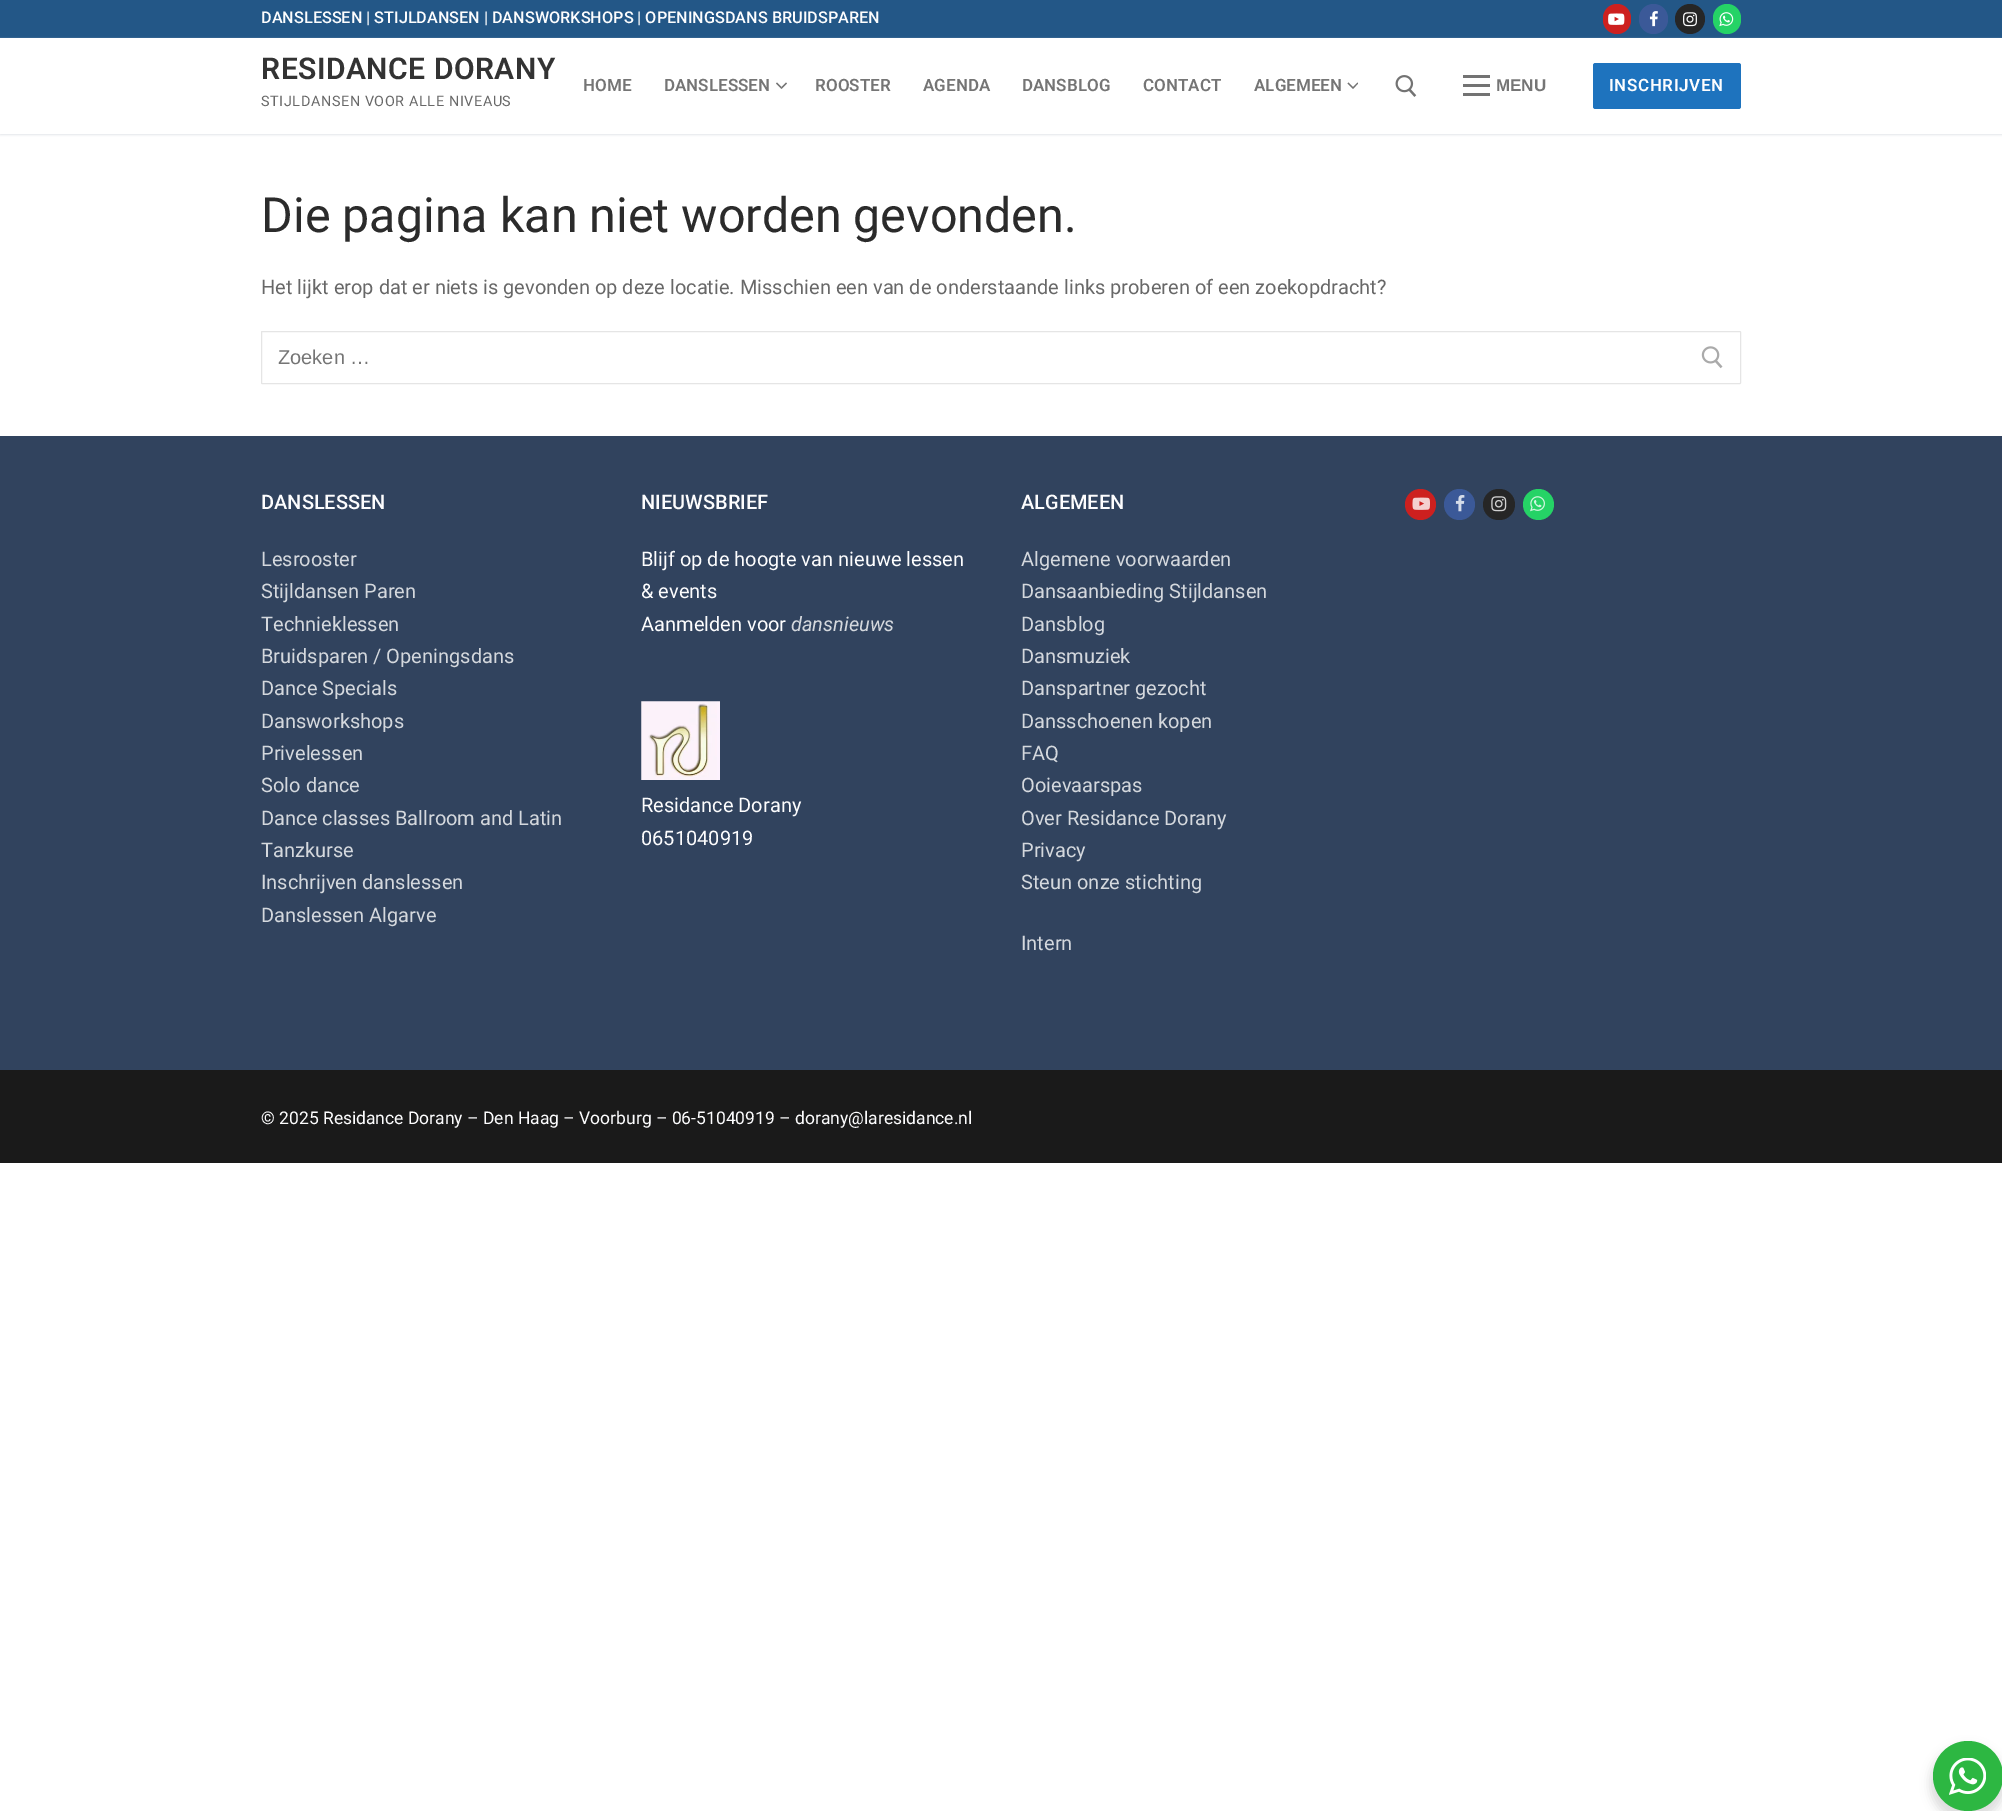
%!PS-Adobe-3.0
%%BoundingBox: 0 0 2002 1811
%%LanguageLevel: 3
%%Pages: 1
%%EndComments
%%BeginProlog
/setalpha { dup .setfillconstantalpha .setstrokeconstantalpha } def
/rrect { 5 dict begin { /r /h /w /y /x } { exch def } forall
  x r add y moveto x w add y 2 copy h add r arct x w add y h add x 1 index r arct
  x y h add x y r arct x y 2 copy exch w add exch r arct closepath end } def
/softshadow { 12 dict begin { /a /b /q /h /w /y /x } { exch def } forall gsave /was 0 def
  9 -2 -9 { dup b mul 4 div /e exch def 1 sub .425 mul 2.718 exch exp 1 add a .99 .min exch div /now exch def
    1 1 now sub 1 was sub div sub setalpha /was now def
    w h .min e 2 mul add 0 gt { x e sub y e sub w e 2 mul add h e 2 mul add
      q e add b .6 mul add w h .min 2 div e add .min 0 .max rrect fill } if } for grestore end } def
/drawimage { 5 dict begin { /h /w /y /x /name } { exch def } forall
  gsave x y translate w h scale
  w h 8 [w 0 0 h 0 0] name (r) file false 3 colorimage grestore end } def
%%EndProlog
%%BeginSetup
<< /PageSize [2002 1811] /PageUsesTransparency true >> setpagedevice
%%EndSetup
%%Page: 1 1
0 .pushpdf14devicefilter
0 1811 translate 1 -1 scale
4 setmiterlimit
1 setgray
0 0 2002 1811 rectfill
0.137 0.341 0.529 setrgbcolor
0 0 2002 38 rectfill
0.804 0.125 0.122 setrgbcolor
1603 4 28 30 14 rrect fill
(images/1.raw) 1608 13 17 12 drawimage
0.231 0.349 0.596 setrgbcolor
1639 4 29 30 14.5 rrect fill
(images/2.raw) 1649 11 9 16 drawimage
0.149 setgray
newpath 1690 19 15 0 360 arc closepath fill
(images/3.raw) 1683 12 14 15 drawimage
0.145 0.827 0.4 setrgbcolor
1713 4 28 30 14 rrect fill
(images/4.raw) 1719 12 15 15 drawimage
0.882 0.898 0.918 setrgbcolor
0 39 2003 96 0 1 1 softshadow
1 setgray
0 38 2002 96 rectfill
0.451 setgray
newpath 781.5 89 moveto 776 83.5 lineto 777 82.5 lineto 781.5 87 lineto closepath fill
0.55 setalpha
0 setgray
newpath 787 83.5 moveto 781.5 89 lineto 781.5 87 lineto 786 82.5 lineto closepath fill
1 setalpha
0.451 setgray
newpath 1353 89 moveto 1347.5 83.5 lineto 1348.5 82.5 lineto 1353 87 lineto closepath 1358 83.5 moveto 1353 89 lineto 1353 87 lineto 1357.5 82.5 lineto closepath fill
(images/5.raw) 1395 75 22 22 drawimage
1463 84 27 3 rectfill
1463 75 27 3 rectfill
1463 93 27 3 rectfill
0.118 0.451 0.745 setrgbcolor
1593 63 148 46 2.5 rrect fill
0.898 setgray
261.5 331.5 1479 52 0.5 rrect stroke
(images/6.raw) 1701 346 22 23 drawimage
0.192 0.263 0.369 setrgbcolor
0 436 2002 634 rectfill
(images/7.raw) 641 701 79 79 drawimage
0.804 0.125 0.122 setrgbcolor
newpath 1420.5 504.5 15.5 0 360 arc closepath fill
(images/8.raw) 1412 497 18 13 drawimage
0.231 0.349 0.596 setrgbcolor
newpath 1459.5 504.5 15.5 0 360 arc closepath fill
(images/9.raw) 1455 495 10 17 drawimage
0.149 setgray
1483 489 32 31 15.5 rrect fill
(images/10.raw) 1491 496 16 16 drawimage
0.145 0.827 0.4 setrgbcolor
newpath 1538.5 504.5 15.5 0 360 arc closepath fill
(images/11.raw) 1530 496 15 16 drawimage
0.102 setgray
0 1070 2002 93 rectfill
0 setgray
1930 1746 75 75 37.5 5 0.14 softshadow
0.176 0.718 0.259 setrgbcolor
newpath 1968 1776 35 0 360 arc closepath fill
(images/12.raw) 1949 1758 37 37 drawimage
/Roboto-Medium [16.25 0 0 -16.25 0 0] selectfont
0.992 0.992 0.996 setrgbcolor
261 23 moveto (DANSLESSEN | STIJLDANSEN | DANSWORKSHOPS | OPENINGSDANS BRUIDSPAREN) show
/Roboto-SemiBold [30 0 0 -30 0 0] selectfont
0.2 setgray
261 79 moveto 0.5 0 (RESIDANCE DORANY) ashow
/Roboto-Regular [14.4 0 0 -14.4 0 0] selectfont
0.408 setgray
261 106 moveto 0.6 0 (STIJLDANSEN VOOR ALLE NIVEAUS) ashow
/Roboto-SemiBold [17 0 0 -17 0 0] selectfont
0.459 setgray
583 91 moveto (HOME) show
664 91 moveto (DANSLESSEN) show
815 91 moveto (ROOSTER) show
923 91 moveto (AGENDA) show
1022 91 moveto (DANSBLOG) show
1143 91 moveto (CONTACT) show
1254 91 moveto (ALGEMEEN) show
/LiberationSans-Bold [17 0 0 -17 0 0] selectfont
1496 91 moveto (MENU) show
/Roboto-SemiBold [17 0 0 -17 0 0] selectfont
0.992 0.992 0.996 setrgbcolor
1609 91 moveto 0.6 0 (INSCHRIJVEN) ashow
/Roboto-Regular [48.4 0 0 -48.4 0 0] selectfont
0.169 setgray
261 232 moveto (Die pagina kan niet worden gevonden.) show
/Roboto-Regular [20 0 0 -20 0 0] selectfont
0.408 setgray
261 294 moveto (Het lijkt erop dat er niets is gevonden op deze locatie. Misschien een van de onderstaande links proberen of een zoekopdracht?) show
/LiberationSans-Regular [20 0 0 -20 0 0] selectfont
0.459 setgray
278 364 moveto (Zoeken …) show
/Roboto-Medium [20 0 0 -20 0 0] selectfont
0.992 0.992 0.996 setrgbcolor
261 509 moveto (DANSLESSEN) show
/Roboto-Regular [20 0 0 -20 0 0] selectfont
0.831 0.847 0.867 setrgbcolor
261 566 moveto (Lesrooster) show
261 598 moveto (Stijldansen Paren) show
261 631 moveto (Technieklessen) show
261 663 moveto (Bruidsparen / Openingsdans) show
261 695 moveto (Dance Specials) show
261 728 moveto (Dansworkshops) show
261 760 moveto (Privelessen) show
261 792 moveto (Solo dance) show
261 825 moveto (Dance classes Ballroom and Latin) show
261 857 moveto (Tanzkurse) show
261 889 moveto (Inschrijven danslessen) show
261 922 moveto (Danslessen Algarve) show
/Roboto-Medium [20 0 0 -20 0 0] selectfont
0.992 0.992 0.996 setrgbcolor
641 509 moveto (NIEUWSBRIEF) show
/Roboto-Regular [20 0 0 -20 0 0] selectfont
641 566 moveto (Blijf op de hoogte van nieuwe lessen) show
641 598 moveto (& events) show
641 631 moveto (Aanmelden voor) show
/Roboto-Italic [20 0 0 -20 0 0] selectfont
0.831 0.847 0.867 setrgbcolor
791 631 moveto (dansnieuws) show
/Roboto-Regular [20 0 0 -20 0 0] selectfont
0.992 0.992 0.996 setrgbcolor
641 812 moveto (Residance Dorany) show
641 845 moveto (0651040919) show
/Roboto-Medium [20 0 0 -20 0 0] selectfont
1021 509 moveto (ALGEMEEN) show
/Roboto-Regular [20 0 0 -20 0 0] selectfont
0.831 0.847 0.867 setrgbcolor
1021 566 moveto (Algemene voorwaarden) show
1021 598 moveto (Dansaanbieding Stijldansen) show
1021 631 moveto (Dansblog) show
1021 663 moveto (Dansmuziek) show
1021 695 moveto (Danspartner gezocht) show
1021 728 moveto (Dansschoenen kopen) show
1021 760 moveto (FAQ) show
1021 792 moveto (Ooievaarspas) show
1021 825 moveto (Over Residance Dorany) show
1021 857 moveto (Privacy) show
1021 889 moveto (Steun onze stichting) show
1021 950 moveto (Intern) show
/Roboto-Regular [17.5 0 0 -17.5 0 0] selectfont
0.992 0.992 0.996 setrgbcolor
261 1124 moveto (© 2025 Residance Dorany – Den Haag – Voorburg – 06-51040919 – dorany@laresidance.nl) show
.poppdf14devicefilter showpage
%%EOF
